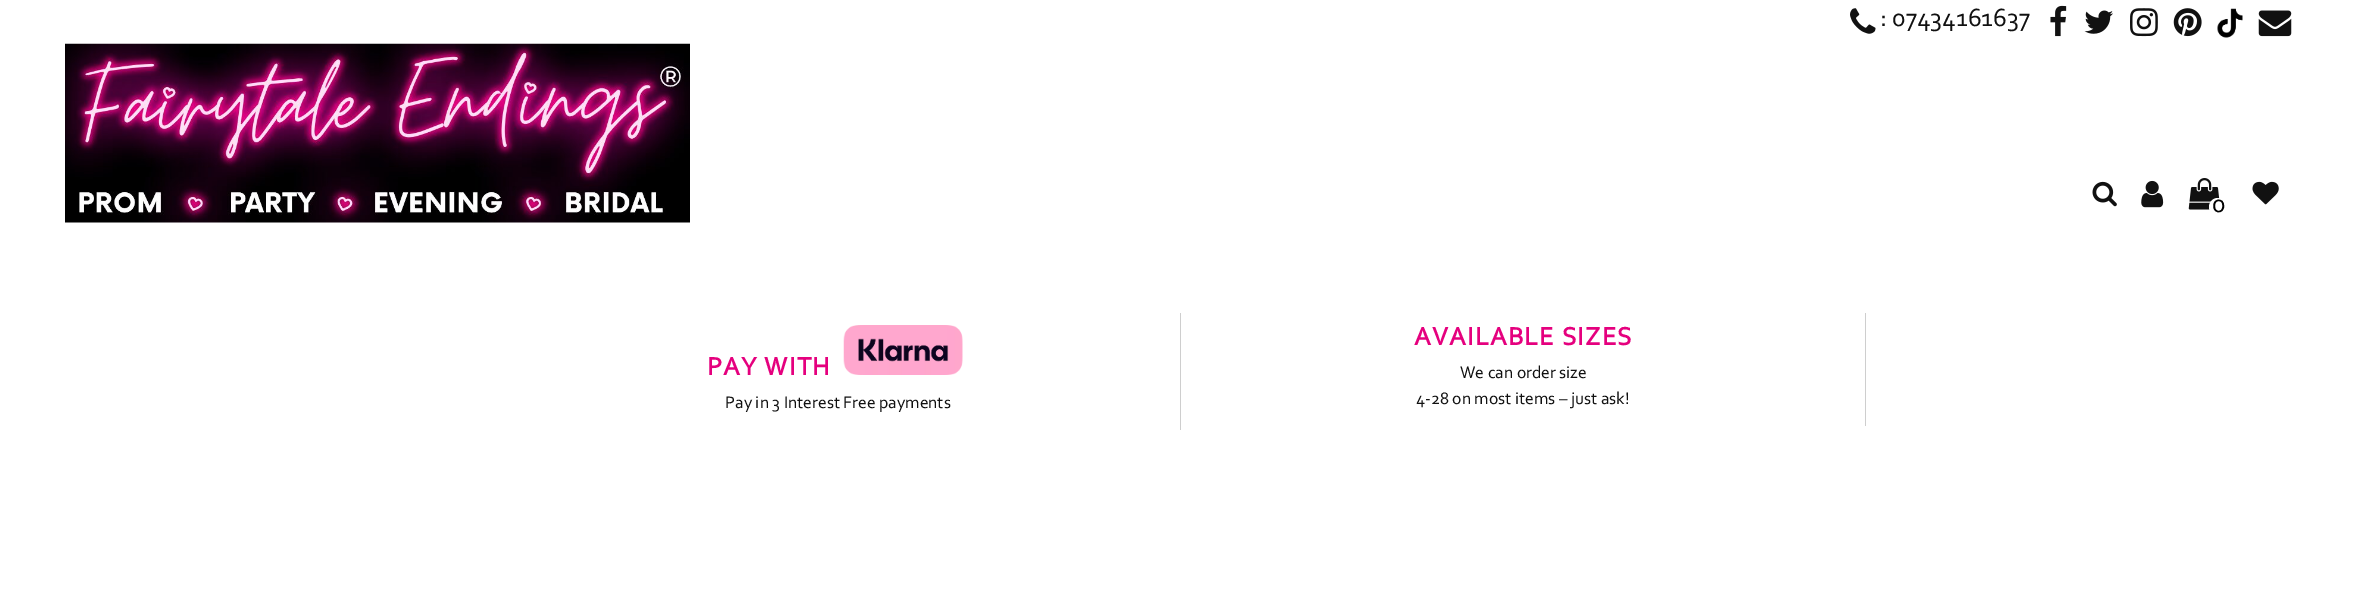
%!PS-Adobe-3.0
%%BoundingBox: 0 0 2362 609
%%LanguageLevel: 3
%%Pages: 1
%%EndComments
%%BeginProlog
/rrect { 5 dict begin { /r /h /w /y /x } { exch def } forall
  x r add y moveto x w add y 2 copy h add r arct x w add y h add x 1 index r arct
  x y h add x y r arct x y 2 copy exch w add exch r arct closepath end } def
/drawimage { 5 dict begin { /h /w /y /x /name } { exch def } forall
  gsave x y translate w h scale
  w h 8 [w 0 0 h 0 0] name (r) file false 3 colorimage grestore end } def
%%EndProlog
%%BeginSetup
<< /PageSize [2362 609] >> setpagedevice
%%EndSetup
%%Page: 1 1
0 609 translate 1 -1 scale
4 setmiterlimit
1 setgray
0 0 2362 609 rectfill
(images/1.raw) 1850 8 26 26 drawimage
(images/2.raw) 2050 5 17 32 drawimage
(images/3.raw) 2084 10 29 24 drawimage
(images/4.raw) 2130 8 28 29 drawimage
(images/5.raw) 2173 8 29 29 drawimage
(images/6.raw) 2217 8 26 30 drawimage
(images/7.raw) 2258 10 34 27 drawimage
(images/8.raw) 65 43 625 180 drawimage
(images/9.raw) 2092 181 25 26 drawimage
(images/10.raw) 2141 180 23 28 drawimage
(images/11.raw) 2188 178 32 32 drawimage
2209 198 20 18 9 rrect fill
(images/12.raw) 2252 181 27 24 drawimage
0.808 setgray
1180 313 1 117 rectfill
(images/13.raw) 843 325 120 50 drawimage
1865 313 1 113 rectfill
/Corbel-Regular [26.25 0 0 -26.25 0 0] selectfont
0.067 setgray
1880 26 moveto (: 07434161637) show
0 setgray
2212 212 moveto (0) show
/Corbel-Bold [26.25 0 0 -26.25 0 0] selectfont
0.898 0 0.494 setrgbcolor
707 375 moveto 1.25 0 (PAY WITH) ashow
/Corbel-Regular [17.5 0 0 -17.5 0 0] selectfont
0.067 setgray
725 408 moveto (Pay in 3 Interest Free payments) show
/Corbel-Bold [26.25 0 0 -26.25 0 0] selectfont
0.898 0 0.494 setrgbcolor
1414 345 moveto 1.25 0 (AVAILABLE SIZES) ashow
/Corbel-Regular [17.5 0 0 -17.5 0 0] selectfont
0.067 setgray
1460 378 moveto (We can order size) show
1416 404 moveto (4-28 on most items – just ask!) show
showpage
%%EOF
